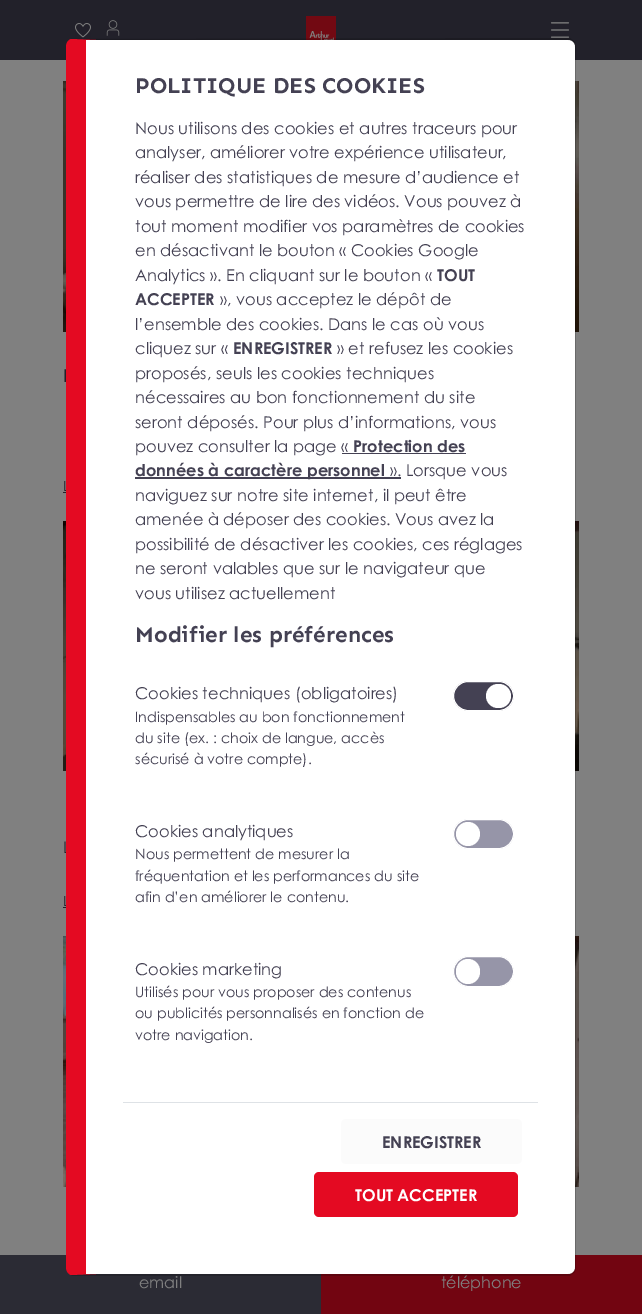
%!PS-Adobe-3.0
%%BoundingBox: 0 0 642 1314
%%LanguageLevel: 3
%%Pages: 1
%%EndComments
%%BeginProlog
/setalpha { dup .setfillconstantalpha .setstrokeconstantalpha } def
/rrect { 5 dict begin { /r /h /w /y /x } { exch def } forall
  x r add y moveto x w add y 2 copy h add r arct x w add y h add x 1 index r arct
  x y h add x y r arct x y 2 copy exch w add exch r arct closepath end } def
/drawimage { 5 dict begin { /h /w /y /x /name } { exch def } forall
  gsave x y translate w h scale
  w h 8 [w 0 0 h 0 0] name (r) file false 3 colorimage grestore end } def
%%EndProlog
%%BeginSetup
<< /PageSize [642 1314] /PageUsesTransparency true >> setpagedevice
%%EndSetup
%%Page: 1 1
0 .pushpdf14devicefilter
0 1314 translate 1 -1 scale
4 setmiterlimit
0.502 setgray
0 0 642 1314 rectfill
0.133 0.129 0.165 setrgbcolor
0 0 642 60 rectfill
(images/1.raw) 306 16 30 24 drawimage
(images/2.raw) 75 23 16 15 drawimage
(images/3.raw) 106 20 14 16 drawimage
(images/4.raw) 550 22 20 16 drawimage
(images/5.raw) 63 81 516 251 drawimage
63 492 3 1 rectfill
(images/6.raw) 63 521 516 250 drawimage
63 907 3 1 rectfill
(images/7.raw) 63 936 516 251 drawimage
0.169 0.169 0.204 setrgbcolor
0 1255 321 59 rectfill
0.447 0.02 0.067 setrgbcolor
321 1255 321 59 rectfill
1 setgray
newpath 86 40 moveto 568 40 lineto 572 40 575 43 575 47 curveto 575 1267 lineto 575 1271 572 1274 568 1274 curveto 86 1274 lineto closepath fill
0.18 setalpha
0 setgray
newpath 71 39 moveto 570 38 lineto 574 41 lineto 573 42 lineto 572 41 570 40 568 40 curveto 96 40 lineto closepath fill
newpath 576 1267 moveto 576 47 lineto 576 45 575 42 574 41 curveto 573 42 lineto 574 43 575 45 575 47 curveto 575 1267 lineto 575 1269 574 1271 573 1272 curveto 574 1273 lineto 575 1272 576 1269 576 1267 curveto closepath fill
1 setalpha
0.267 0.255 0.325 setrgbcolor
342 453 124 1 rectfill
135 477 266 2 rectfill
453.5 681.5 60 29 14.5 rrect gsave fill grestore
1 setgray
stroke
486 684 25 24 12 rrect fill
0.588 0.584 0.659 setrgbcolor
453.5 819.5 60 29 14.5 rrect gsave fill grestore
1 setgray
stroke
newpath 468 834 12 0 360 arc closepath fill
0.588 0.584 0.659 setrgbcolor
453.5 956.5 60 30 15 rrect gsave fill grestore
1 setgray
stroke
456 959 24 25 12 rrect fill
0.871 0.886 0.902 setrgbcolor
123 1102 415 1 rectfill
0.984 setgray
341 1119 181 45 5 rrect fill
0.894 0.039 0.133 setrgbcolor
314 1172 204 45 5 rrect fill
/Sen-Regular [18 0 0 -18 0 0] selectfont
0.133 0.129 0.165 setrgbcolor
63 382 moveto (l) show
/CenturyGothic-Regular [14 0 0 -14 0 0] selectfont
63 491 moveto (L) show
/CenturyGothic-Regular [16 0 0 -16 0 0] selectfont
63 853 moveto (L) show
/CenturyGothic-Regular [14 0 0 -14 0 0] selectfont
63 906 moveto (L) show
/Sen-Bold [22.5 0 0 -22.5 0 0] selectfont
0.267 0.255 0.325 setrgbcolor
135 93 moveto (POLITIQUE DES COOKIES) show
/CenturyGothic-Regular [16.3 0 0 -16.3 0 0] selectfont
135 134 moveto (Nous utilisons des cookies et autres traceurs pour) show
135 158 moveto (analyser, améliorer votre expérience utilisateur,) show
135 183 moveto (réaliser des statistiques de mesure d’audience et) show
135 207 moveto (vous permettre de lire des vidéos. Vous pouvez à) show
135 232 moveto (tout moment modifier vos paramètres de cookies) show
135 256 moveto (en désactivant le bouton « Cookies Google) show
135 281 moveto (Analytics ». En cliquant sur le bouton «) show
/CenturyGothic-Bold [16.3 0 0 -16.3 0 0] selectfont
437 281 moveto (TOUT) show
135 305 moveto (ACCEPTER) show
/CenturyGothic-Regular [16.3 0 0 -16.3 0 0] selectfont
220 305 moveto (», vous acceptez le dépôt de) show
135 330 moveto (l’ensemble des cookies. Dans le cas où vous) show
135 354 moveto (cliquez sur «) show
/CenturyGothic-Bold [16.3 0 0 -16.3 0 0] selectfont
233 354 moveto (ENREGISTRER) show
/CenturyGothic-Regular [16.3 0 0 -16.3 0 0] selectfont
337 354 moveto (» et refusez les cookies) show
135 379 moveto (proposés, seuls les cookies techniques) show
135 403 moveto (nécessaires au bon fonctionnement du site) show
135 428 moveto (seront déposés. Pour plus d’informations, vous) show
135 452 moveto (pouvez consulter la page «) show
/CenturyGothic-Bold [16.3 0 0 -16.3 0 0] selectfont
353 452 moveto (Protection des) show
135 476 moveto (données à caractère personnel) show
/CenturyGothic-Regular [16.3 0 0 -16.3 0 0] selectfont
390 476 moveto (». Lorsque vous) show
135 501 moveto (naviguez sur notre site internet, il peut être) show
135 525 moveto (amenée à déposer des cookies. Vous avez la) show
135 550 moveto (possibilité de désactiver les cookies, ces réglages) show
135 574 moveto (ne seront valables que sur le navigateur que) show
135 599 moveto (vous utilisez actuellement) show
/Sen-Bold [22.5 0 0 -22.5 0 0] selectfont
135 642 moveto (Modifier les préférences) show
/CenturyGothic-Regular [16.3 0 0 -16.3 0 0] selectfont
135 699 moveto (Cookies techniques \(obligatoires\)) show
/CenturyGothic-Regular [14.25 0 0 -14.25 0 0] selectfont
135 722 moveto (Indispensables au bon fonctionnement) show
135 743 moveto (du site \(ex. : choix de langue, accès) show
135 764 moveto (sécurisé à votre compte\).) show
/CenturyGothic-Regular [16.3 0 0 -16.3 0 0] selectfont
135 837 moveto (Cookies analytiques) show
/CenturyGothic-Regular [14.25 0 0 -14.25 0 0] selectfont
135 859 moveto (Nous permettent de mesurer la) show
135 881 moveto (fréquentation et les performances du site) show
135 902 moveto (afin d’en améliorer le contenu.) show
/CenturyGothic-Regular [16.3 0 0 -16.3 0 0] selectfont
135 975 moveto (Cookies marketing) show
/CenturyGothic-Regular [14.25 0 0 -14.25 0 0] selectfont
135 997 moveto (Utilisés pour vous proposer des contenus) show
135 1018 moveto (ou publicités personnalisés en fonction de) show
135 1040 moveto (votre navigation.) show
/CenturyGothic-Bold [16.3 0 0 -16.3 0 0] selectfont
382 1148 moveto (ENREGISTRER) show
1 setgray
355 1201 moveto (TOUT ACCEPTER) show
/CenturyGothic-Regular [16 0 0 -16 0 0] selectfont
0.502 setgray
139 1288 moveto (email) show
441 1288 moveto (téléphone) show
0.18 setalpha
0 setgray
newpath 72 1276 moveto 71 1275 lineto 96 1274 lineto 568 1274 lineto 570 1274 572 1273 573 1272 curveto 574 1273 lineto 570 1276 lineto closepath fill
1 setalpha
0.894 0.039 0.133 setrgbcolor
newpath 86 40 moveto 96 40 lineto 71 39 lineto 68 40 66 43 66 47 curveto 66 1267 lineto 66 1271 68 1274 71 1275 curveto 96 1274 lineto 86 1274 lineto closepath fill
.poppdf14devicefilter showpage
%%EOF
